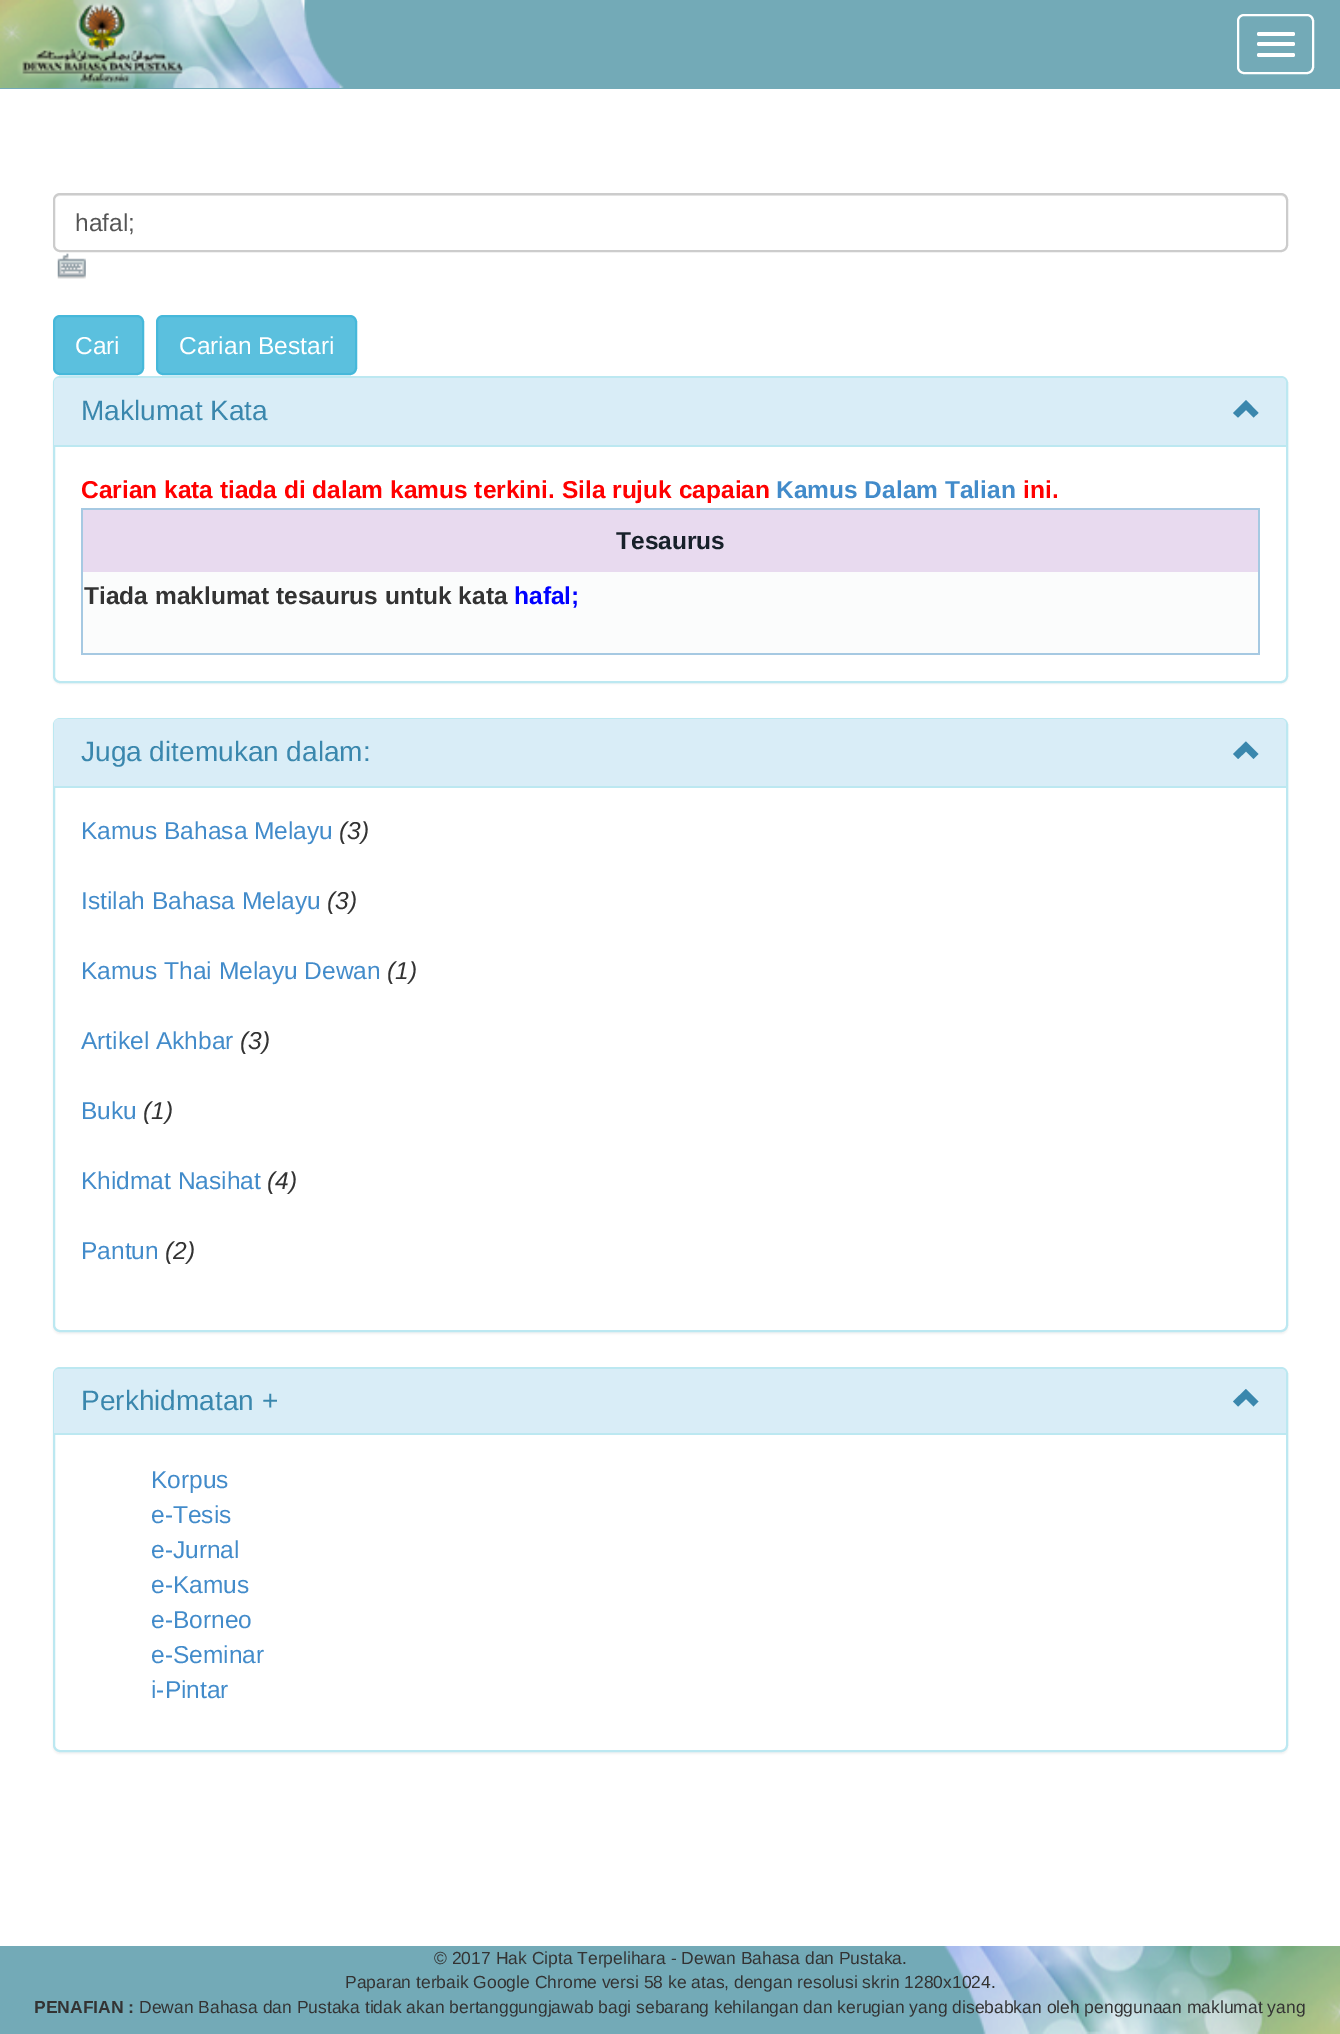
%!PS-Adobe-3.0
%%BoundingBox: 0 0 1340 2034
%%LanguageLevel: 3
%%Pages: 1
%%EndComments
%%BeginProlog
/setalpha { dup .setfillconstantalpha .setstrokeconstantalpha } def
/rrect { 5 dict begin { /r /h /w /y /x } { exch def } forall
  x r add y moveto x w add y 2 copy h add r arct x w add y h add x 1 index r arct
  x y h add x y r arct x y 2 copy exch w add exch r arct closepath end } def
/softshadow { 12 dict begin { /a /b /q /h /w /y /x } { exch def } forall gsave /was 0 def
  9 -2 -9 { dup b mul 4 div /e exch def 1 sub .425 mul 2.718 exch exp 1 add a .99 .min exch div /now exch def
    1 1 now sub 1 was sub div sub setalpha /was now def
    w h .min e 2 mul add 0 gt { x e sub y e sub w e 2 mul add h e 2 mul add
      q e add b .6 mul add w h .min 2 div e add .min 0 .max rrect fill } if } for grestore end } def
/drawimage { 5 dict begin { /h /w /y /x /name } { exch def } forall
  gsave x y translate w h scale
  w h 8 [w 0 0 h 0 0] name (r) file false 3 colorimage grestore end } def
%%EndProlog
%%BeginSetup
<< /PageSize [1340 2034] /PageUsesTransparency true >> setpagedevice
%%EndSetup
%%Page: 1 1
0 .pushpdf14devicefilter
0 2034 translate 1 -1 scale
4 setmiterlimit
1 setgray
0 0 1340 2034 rectfill
0.451 0.667 0.718 setrgbcolor
0 0 1340 89 rectfill
(images/1.raw) 0 0 344 88 drawimage
1 setgray
2 setlinewidth
1238 15 75 58 6 rrect stroke
1257 32 38 4 2 rrect fill
1257 42 38 4 2 rrect fill
1257 53 38 4 2 rrect fill
0.925 setgray
newpath 60 196 moveto 1281 196 lineto 1284 196 1286 198 1286 201 curveto 1286 199 lineto 1286 196 1284 194 1281 194 curveto 59 194 lineto 56 194 54 196 54 199 curveto 54 201 lineto 54 198 57 196 60 196 curveto closepath fill
0.8 setgray
54 194 1233 57 6 rrect stroke
(images/2.raw) 57 253 29 26 drawimage
0.357 0.753 0.871 setrgbcolor
54 316 89 58 6 rrect gsave fill grestore
0.275 0.722 0.855 setrgbcolor
stroke
0.357 0.753 0.871 setrgbcolor
157 316 199 58 6 rrect gsave fill grestore
0.275 0.722 0.855 setrgbcolor
stroke
0 setgray
53 378 1235 306 7 1 0.05 softshadow
1 setgray
54 377 1233 305 6 rrect gsave fill grestore
0.737 0.91 0.945 setrgbcolor
stroke
0.851 0.929 0.969 setrgbcolor
newpath 59 378 moveto 1281 378 lineto 1284 378 1286 380 1286 383 curveto 1286 446 lineto 54 446 lineto 54 383 lineto 54 380 56 378 59 378 curveto closepath fill
0.737 0.91 0.945 setrgbcolor
54 445 1232 2 rectfill
0.227 0.529 0.678 setrgbcolor
newpath 1253.5 417.5 moveto 1258.5 413 lineto 1246 400 lineto 1233 413 lineto 1238 417.5 lineto 1246 410 lineto closepath fill
0.651 0.788 0.886 setrgbcolor
81 508 1179 2 rectfill
0.984 0.988 0.988 setrgbcolor
82 572 1178 4 rectfill
0.651 0.788 0.886 setrgbcolor
1258 508 2 147 rectfill
81 653 1179 2 rectfill
81 508 2 147 rectfill
0.91 0.855 0.937 setrgbcolor
83 510 1175 62 rectfill
0.984 0.988 0.988 setrgbcolor
83 576 1175 77 rectfill
0 setgray
53 719 1235 615 7 1 0.05 softshadow
1 setgray
54 719 1233 612 6 rrect gsave fill grestore
0.737 0.91 0.945 setrgbcolor
stroke
0.851 0.929 0.969 setrgbcolor
newpath 59 719 moveto 1281 719 lineto 1284 719 1286 721 1286 724 curveto 1286 788 lineto 54 788 lineto 54 724 lineto 54 721 56 719 59 719 curveto closepath fill
0.737 0.91 0.945 setrgbcolor
54 786 1232 2 rectfill
0.227 0.529 0.678 setrgbcolor
newpath 1253.5 759 moveto 1258.5 754 lineto 1246 741.5 lineto 1233 754 lineto 1238 759 lineto 1246 751.5 lineto closepath fill
0 setgray
53 1369 1235 385 7 1 0.05 softshadow
1 setgray
54 1368 1233 383 6 rrect gsave fill grestore
0.737 0.91 0.945 setrgbcolor
stroke
0.851 0.929 0.969 setrgbcolor
newpath 59 1369 moveto 1281 1369 lineto 1284 1369 1286 1371 1286 1374 curveto 1286 1435 lineto 54 1435 lineto 54 1374 lineto 54 1371 56 1369 59 1369 curveto closepath fill
0.737 0.91 0.945 setrgbcolor
54 1433 1232 2 rectfill
0.227 0.529 0.678 setrgbcolor
newpath 1253.5 1406.5 moveto 1258.5 1401.5 lineto 1246 1389 lineto 1233 1401.5 lineto 1238 1406.5 lineto 1246 1399 lineto closepath fill
0.451 0.667 0.718 setrgbcolor
0 1946 986 88 rectfill
(images/3.raw) 944 1946 396 88 drawimage
/LiberationSans-Regular [24.5 0 0 -24.5 0 0] selectfont
0.333 setgray
75 231 moveto (hafal;) show
1 setgray
75 354 moveto (Cari) show
179 354 moveto (Carian Bestari) show
/LiberationSans-Regular [28 0 0 -28 0 0] selectfont
0.227 0.529 0.678 setrgbcolor
81 420 moveto (Maklumat Kata) show
/LiberationSans-Bold [24.5 0 0 -24.5 0 0] selectfont
1 0 0 setrgbcolor
81 498 moveto (Carian kata tiada di dalam kamus terkini. Sila rujuk capaian) show
0.259 0.545 0.792 setrgbcolor
776 498 moveto (Kamus Dalam Talian) show
1 0 0 setrgbcolor
1023 498 moveto (ini.) show
0.09 0.125 0.165 setrgbcolor
616 549 moveto (Tesaurus) show
0.2 setgray
84 604 moveto (Tiada maklumat tesaurus untuk kata) show
0 0 1 setrgbcolor
514 604 moveto (hafal;) show
/LiberationSans-Regular [28 0 0 -28 0 0] selectfont
0.227 0.529 0.678 setrgbcolor
81 761 moveto (Juga ditemukan dalam:) show
/LiberationSans-Regular [24.5 0 0 -24.5 0 0] selectfont
0.259 0.545 0.792 setrgbcolor
81 839 moveto (Kamus Bahasa Melayu) show
/LiberationSans-Italic [24.5 0 0 -24.5 0 0] selectfont
0.2 setgray
339 839 moveto (\(3\)) show
/LiberationSans-Regular [24.5 0 0 -24.5 0 0] selectfont
0.259 0.545 0.792 setrgbcolor
81 909 moveto (Istilah Bahasa Melayu) show
/LiberationSans-Italic [24.5 0 0 -24.5 0 0] selectfont
0.2 setgray
327 909 moveto (\(3\)) show
/LiberationSans-Regular [24.5 0 0 -24.5 0 0] selectfont
0.259 0.545 0.792 setrgbcolor
81 979 moveto (Kamus Thai Melayu Dewan) show
/LiberationSans-Italic [24.5 0 0 -24.5 0 0] selectfont
0.2 setgray
387 979 moveto (\(1\)) show
/LiberationSans-Regular [24.5 0 0 -24.5 0 0] selectfont
0.259 0.545 0.792 setrgbcolor
81 1049 moveto (Artikel Akhbar) show
/LiberationSans-Italic [24.5 0 0 -24.5 0 0] selectfont
0.2 setgray
240 1049 moveto (\(3\)) show
/LiberationSans-Regular [24.5 0 0 -24.5 0 0] selectfont
0.259 0.545 0.792 setrgbcolor
81 1119 moveto (Buku) show
/LiberationSans-Italic [24.5 0 0 -24.5 0 0] selectfont
0.2 setgray
143 1119 moveto (\(1\)) show
/LiberationSans-Regular [24.5 0 0 -24.5 0 0] selectfont
0.259 0.545 0.792 setrgbcolor
81 1189 moveto (Khidmat Nasihat) show
/LiberationSans-Italic [24.5 0 0 -24.5 0 0] selectfont
0.2 setgray
267 1189 moveto (\(4\)) show
/LiberationSans-Regular [24.5 0 0 -24.5 0 0] selectfont
0.259 0.545 0.792 setrgbcolor
81 1259 moveto (Pantun) show
/LiberationSans-Italic [24.5 0 0 -24.5 0 0] selectfont
0.2 setgray
165 1259 moveto (\(2\)) show
/LiberationSans-Regular [28 0 0 -28 0 0] selectfont
0.227 0.529 0.678 setrgbcolor
81 1410 moveto (Perkhidmatan +) show
/LiberationSans-Regular [24.5 0 0 -24.5 0 0] selectfont
0.259 0.545 0.792 setrgbcolor
151 1488 moveto (Korpus) show
151 1523 moveto (e-Tesis) show
151 1558 moveto (e-Jurnal) show
151 1593 moveto (e-Kamus) show
151 1628 moveto (e-Borneo) show
151 1663 moveto (e-Seminar) show
151 1698 moveto (i-Pintar) show
/LiberationSans-Regular [17.5 0 0 -17.5 0 0] selectfont
0.2 setgray
434 1964 moveto (© 2017 Hak Cipta Terpelihara - Dewan Bahasa dan Pustaka.) show
345 1988 moveto (Paparan terbaik Google Chrome versi 58 ke atas, dengan resolusi skrin 1280x1024.) show
/LiberationSans-Bold [17.5 0 0 -17.5 0 0] selectfont
34 2013 moveto (PENAFIAN :) show
/LiberationSans-Regular [17.5 0 0 -17.5 0 0] selectfont
139 2013 moveto (Dewan Bahasa dan Pustaka tidak akan bertanggungjawab bagi sebarang kehilangan dan kerugian yang disebabkan oleh penggunaan maklumat yang) show
.poppdf14devicefilter showpage
%%EOF
